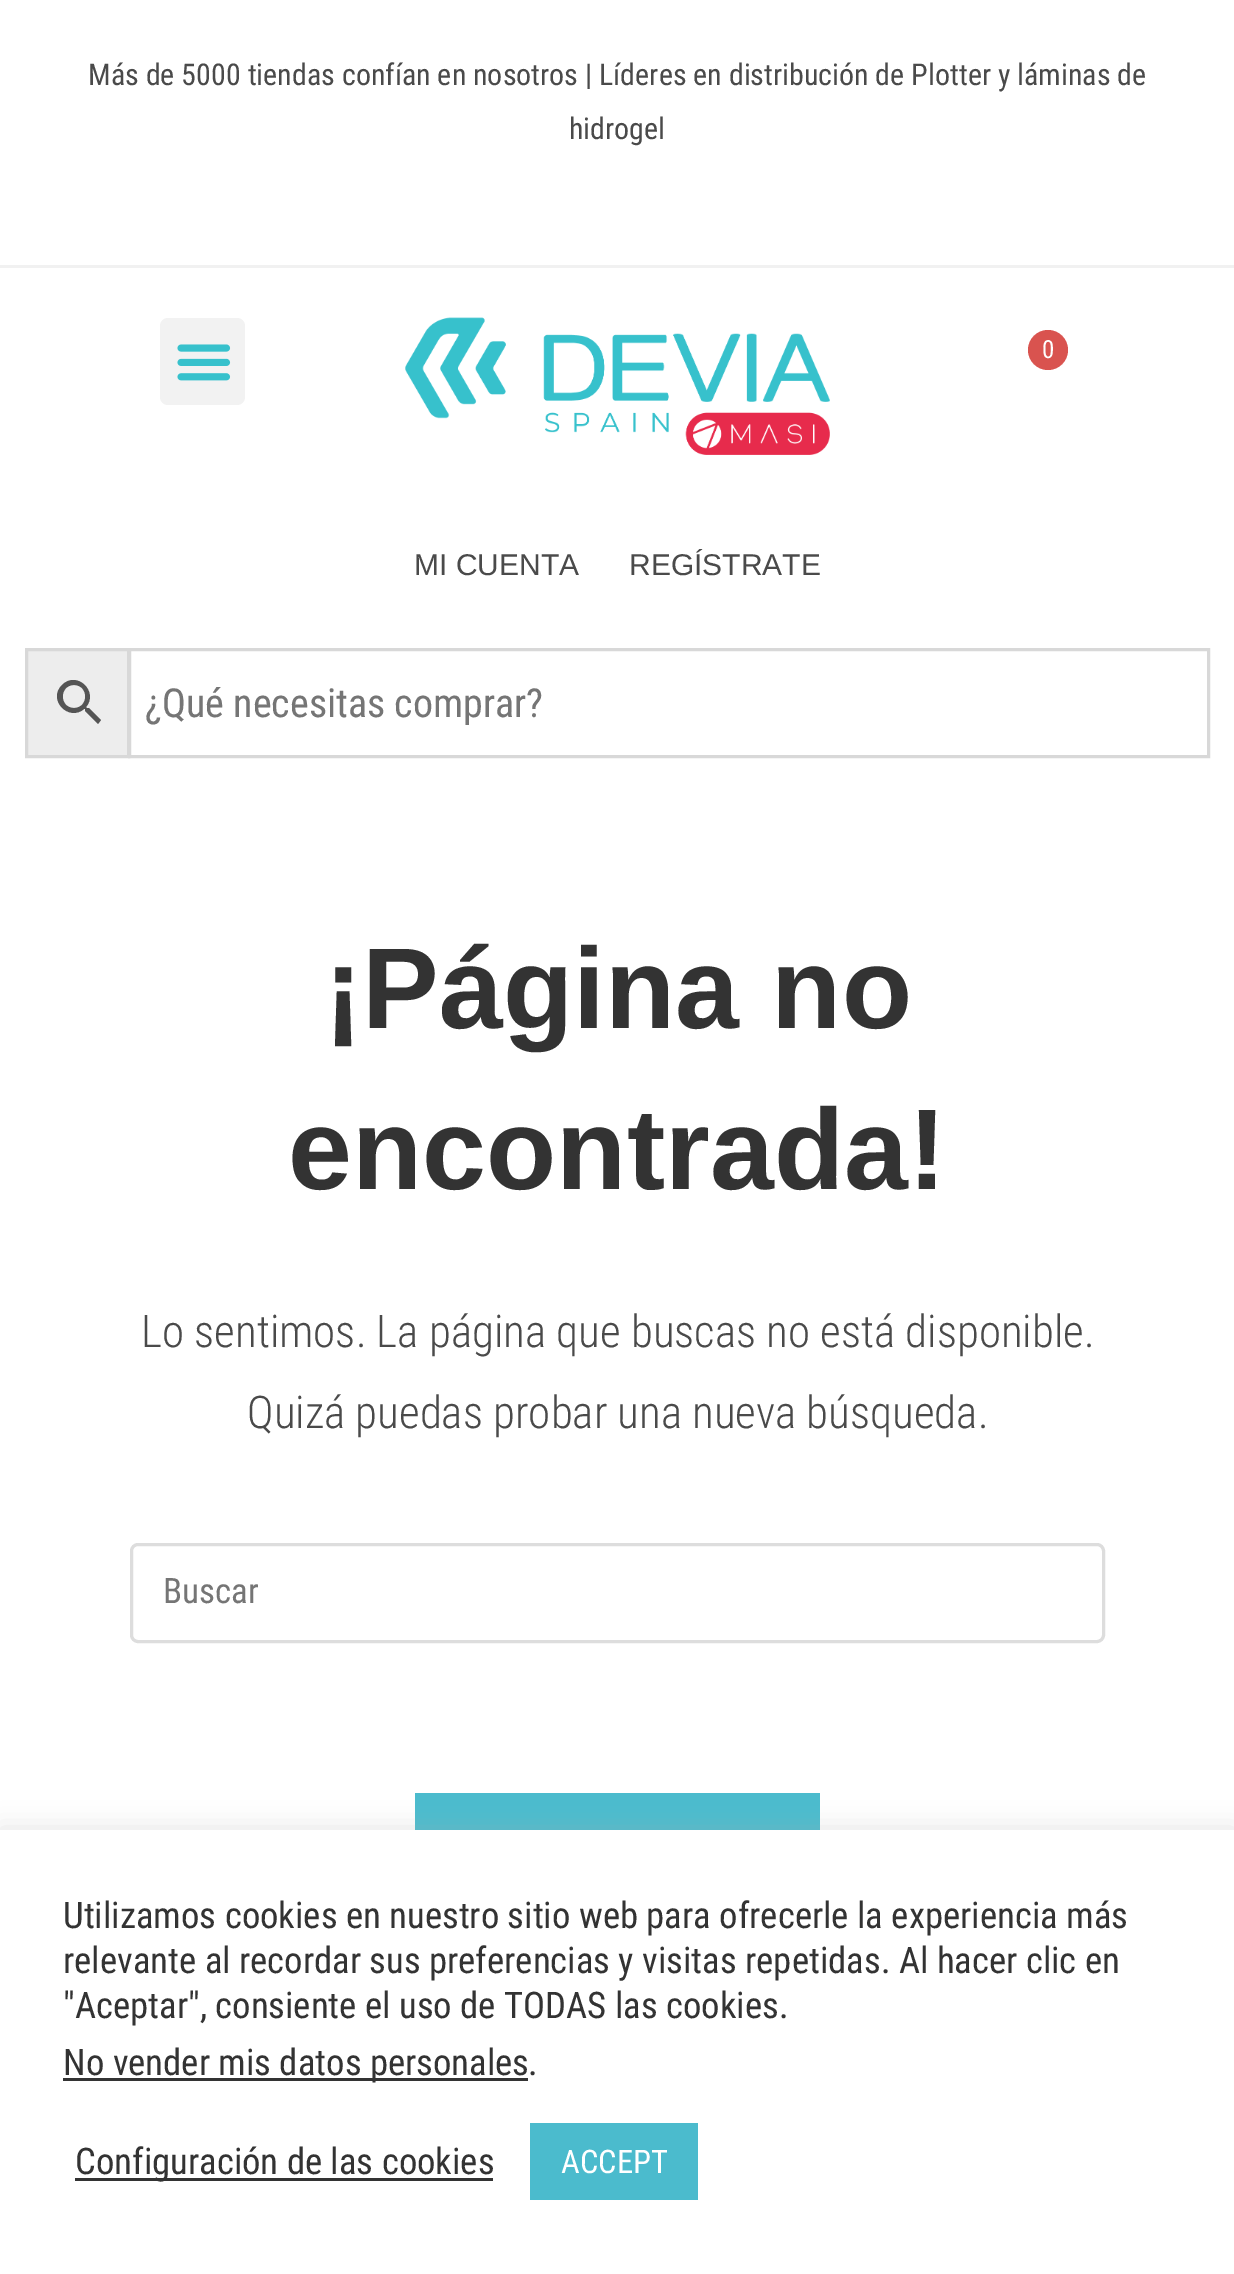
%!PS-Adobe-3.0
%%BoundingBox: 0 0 1234 2274
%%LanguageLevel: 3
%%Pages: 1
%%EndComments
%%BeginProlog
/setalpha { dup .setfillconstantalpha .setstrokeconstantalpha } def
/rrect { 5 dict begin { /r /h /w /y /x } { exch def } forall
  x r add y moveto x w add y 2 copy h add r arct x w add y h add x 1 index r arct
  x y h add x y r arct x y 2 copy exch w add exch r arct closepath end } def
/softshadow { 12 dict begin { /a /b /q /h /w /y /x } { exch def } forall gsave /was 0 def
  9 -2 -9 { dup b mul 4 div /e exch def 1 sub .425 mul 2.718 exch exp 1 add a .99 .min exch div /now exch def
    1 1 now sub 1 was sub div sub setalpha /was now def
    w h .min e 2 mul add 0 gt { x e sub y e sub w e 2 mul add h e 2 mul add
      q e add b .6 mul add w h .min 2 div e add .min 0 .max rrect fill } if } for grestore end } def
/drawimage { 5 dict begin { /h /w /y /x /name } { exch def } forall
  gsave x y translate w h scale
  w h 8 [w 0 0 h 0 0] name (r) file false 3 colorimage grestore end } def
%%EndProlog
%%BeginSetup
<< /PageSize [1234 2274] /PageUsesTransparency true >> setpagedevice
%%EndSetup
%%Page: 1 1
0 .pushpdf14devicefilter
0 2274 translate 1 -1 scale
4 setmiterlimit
1 setgray
0 0 1234 2274 rectfill
0.945 setgray
0 265 1234 3 rectfill
0.949 setgray
160 318 85 87 8 rrect fill
(images/1.raw) 177 344 54 37 drawimage
(images/2.raw) 405 317 425 138 drawimage
0.851 0.325 0.31 setrgbcolor
newpath 1048 350 20 0 360 arc closepath fill
0.929 setgray
newpath 26.5 649.5 moveto 128.5 649.5 lineto 128.5 756.5 lineto 26.5 756.5 lineto closepath gsave fill grestore
0.847 setgray
3 setlinewidth
stroke
0.333 setgray
newpath 89 708 moveto 87 708 lineto 86 707 lineto 99 692 77 670 62 685 curveto 47 700 69 722 84 709 curveto 85 709 lineto 85 711 lineto 98 724 lineto 101 720 lineto closepath 74 708 moveto 59 708 59 685 74 685 curveto 89 685 89 708 74 708 curveto closepath fill
0.847 setgray
129.5 649.5 1079 107 rectstroke
0.867 setgray
131.5 1544.5 972 97 6.5 rrect stroke
0.294 0.733 0.804 setrgbcolor
415 1793 405 37 rectfill
0.675 0.671 0.671 setrgbcolor
0 1828 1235 445 0 12.5 0.3 softshadow
1 setgray
0 1830 1234 444 rectfill
0.2 setgray
63 2078 465 3 rectfill
75 2178 418 3 rectfill
0.294 0.733 0.804 setrgbcolor
530 2123 168 77 rectfill
/RobotoCondensed-Regular [30 0 0 -30 0 0] selectfont
0.29 setgray
88 85 moveto (Más de 5000 tiendas confían en nosotros | Líderes en distribución de Plotter y láminas de) show
569 139 moveto (hidrogel) show
/RobotoCondensed-Regular [25 0 0 -25 0 0] selectfont
1 setgray
1042 358 moveto (0) show
/LiberationSans-Regular [30 0 0 -30 0 0] selectfont
0.29 setgray
414 575 moveto (MI CUENTA) show
629 575 moveto (REGÍSTRATE) show
/RobotoCondensed-Regular [40 0 0 -40 0 0] selectfont
0.459 setgray
145 717 moveto (¿Qué necesitas comprar?) show
/LiberationSans-Bold [115 0 0 -115 0 0] selectfont
0.2 setgray
324 1028 moveto (¡Página no) show
288 1189 moveto (encontrada!) show
/RobotoCondensed-Light [45 0 0 -45 0 0] selectfont
0.29 setgray
141 1347 moveto (Lo sentimos. La página que buscas no está disponible.) show
247 1428 moveto (Quizá puedas probar una nueva búsqueda.) show
/RobotoCondensed-Regular [35 0 0 -35 0 0] selectfont
0.459 setgray
163 1603 moveto (Buscar) show
/RobotoCondensed-Regular [36.7 0 0 -36.7 0 0] selectfont
0.2 setgray
63 1928 moveto (Utilizamos cookies en nuestro sitio web para ofrecerle la experiencia más) show
63 1973 moveto (relevante al recordar sus preferencias y visitas repetidas. Al hacer clic en) show
63 2018 moveto ("Aceptar", consiente el uso de TODAS las cookies.) show
63 2075 moveto (No vender mis datos personales) show
528 2075 moveto (.) show
75 2174 moveto (Configuración de las cookies) show
/RobotoCondensed-Regular [32.5 0 0 -32.5 0 0] selectfont
1 setgray
561 2173 moveto (ACCEPT) show
.poppdf14devicefilter showpage
%%EOF
